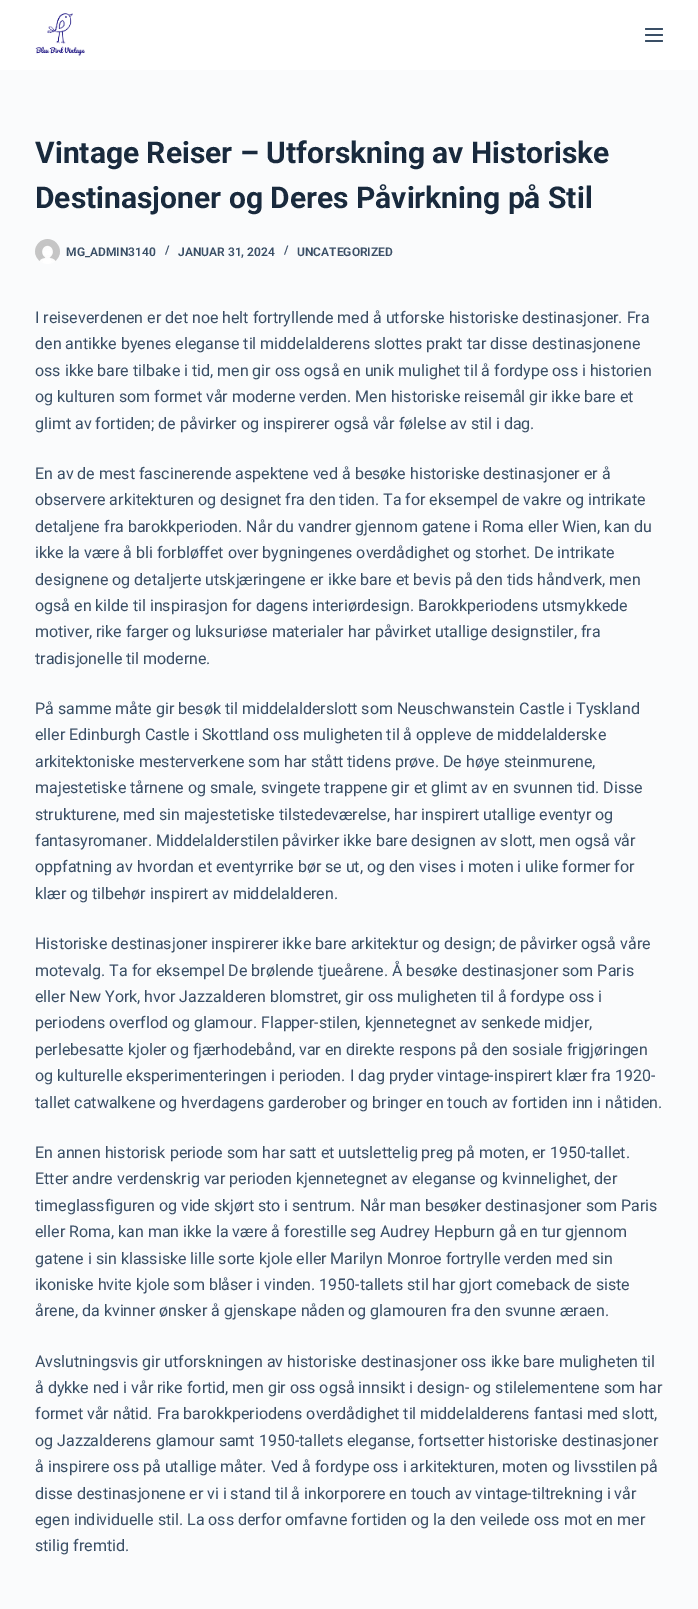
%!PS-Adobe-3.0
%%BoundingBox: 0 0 698 1609
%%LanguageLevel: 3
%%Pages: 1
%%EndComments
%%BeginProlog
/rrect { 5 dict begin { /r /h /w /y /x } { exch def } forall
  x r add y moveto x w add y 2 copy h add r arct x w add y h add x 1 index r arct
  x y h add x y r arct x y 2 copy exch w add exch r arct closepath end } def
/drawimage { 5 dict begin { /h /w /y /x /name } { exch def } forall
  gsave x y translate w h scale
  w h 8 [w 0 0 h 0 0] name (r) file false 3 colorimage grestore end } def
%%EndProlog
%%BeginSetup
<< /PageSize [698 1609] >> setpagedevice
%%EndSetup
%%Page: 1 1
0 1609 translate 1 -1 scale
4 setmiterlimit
0.98 0.984 0.988 setrgbcolor
0 0 698 1609 rectfill
1 setgray
0 0 698 70 rectfill
(images/1.raw) 35 13 50 43 drawimage
0.227 0.31 0.4 setrgbcolor
645 28 18 2 1 rrect fill
645 34 18 2 1 rrect fill
645 40 18 2 1 rrect fill
(images/2.raw) 35 239 25 25 drawimage
/Roboto-Bold [30 0 0 -30 0 0] selectfont
0.098 0.165 0.239 setrgbcolor
35 163 moveto (Vintage Reiser – Utforskning av Historiske) show
35 208 moveto (Destinasjoner og Deres Påvirkning på Stil) show
/Roboto-SemiBold [12 0 0 -12 0 0] selectfont
0.227 0.31 0.4 setrgbcolor
66 256 moveto (MG_ADMIN3140) show
165 254 moveto (/) show
178 256 moveto (JANUAR 31, 2024) show
284 254 moveto (/) show
297 256 moveto (UNCATEGORIZED) show
/Roboto-Regular [16 0 0 -16 0 0] selectfont
35 323 moveto (I reiseverdenen er det noe helt fortryllende med å utforske historiske destinasjoner. Fra) show
35 349 moveto (den antikke byenes eleganse til middelalderens slottes prakt tar disse destinasjonene) show
35 376 moveto (oss ikke bare tilbake i tid, men gir oss også en unik mulighet til å fordype oss i historien) show
35 402 moveto (og kulturen som formet vår moderne verden. Men historiske reisemål gir ikke bare et) show
35 429 moveto (glimt av fortiden; de påvirker og inspirerer også vår følelse av stil i dag.) show
35 479 moveto (En av de mest fascinerende aspektene ved å besøke historiske destinasjoner er å) show
35 505 moveto (observere arkitekturen og designet fra den tiden. Ta for eksempel de vakre og intrikate) show
35 532 moveto (detaljene fra barokkperioden. Når du vandrer gjennom gatene i Roma eller Wien, kan du) show
35 558 moveto (ikke la være å bli forbløffet over bygningenes overdådighet og storhet. De intrikate) show
35 585 moveto (designene og detaljerte utskjæringene er ikke bare et bevis på den tids håndverk, men) show
35 611 moveto (også en kilde til inspirasjon for dagens interiørdesign. Barokkperiodens utsmykkede) show
35 637 moveto (motiver, rike farger og luksuriøse materialer har påvirket utallige designstiler, fra) show
35 664 moveto (tradisjonelle til moderne.) show
35 714 moveto (På samme måte gir besøk til middelalderslott som Neuschwanstein Castle i Tyskland) show
35 740 moveto (eller Edinburgh Castle i Skottland oss muligheten til å oppleve de middelalderske) show
35 767 moveto (arkitektoniske mesterverkene som har stått tidens prøve. De høye steinmurene,) show
35 793 moveto (majestetiske tårnene og smale, svingete trappene gir et glimt av en svunnen tid. Disse) show
35 820 moveto (strukturene, med sin majestetiske tilstedeværelse, har inspirert utallige eventyr og) show
35 846 moveto (fantasyromaner. Middelalderstilen påvirker ikke bare designen av slott, men også vår) show
35 872 moveto (oppfatning av hvordan et eventyrrike bør se ut, og den vises i moten i ulike former for) show
35 899 moveto (klær og tilbehør inspirert av middelalderen.) show
35 949 moveto (Historiske destinasjoner inspirerer ikke bare arkitektur og design; de påvirker også våre) show
35 976 moveto (motevalg. Ta for eksempel De brølende tjueårene. Å besøke destinasjoner som Paris) show
35 1002 moveto (eller New York, hvor Jazzalderen blomstret, gir oss muligheten til å fordype oss i) show
35 1028 moveto (periodens overflod og glamour. Flapper-stilen, kjennetegnet av senkede midjer,) show
35 1055 moveto (perlebesatte kjoler og fjærhodebånd, var en direkte respons på den sosiale frigjøringen) show
35 1081 moveto (og kulturelle eksperimenteringen i perioden. I dag pryder vintage-inspirert klær fra 1920-) show
35 1108 moveto (tallet catwalkene og hverdagens garderober og bringer en touch av fortiden inn i nåtiden.) show
35 1158 moveto (En annen historisk periode som har satt et uutslettelig preg på moten, er 1950-tallet.) show
35 1184 moveto (Etter andre verdenskrig var perioden kjennetegnet av eleganse og kvinnelighet, der) show
35 1211 moveto (timeglassfiguren og vide skjørt sto i sentrum. Når man besøker destinasjoner som Paris) show
35 1237 moveto (eller Roma, kan man ikke la være å forestille seg Audrey Hepburn gå en tur gjennom) show
35 1264 moveto (gatene i sin klassiske lille sorte kjole eller Marilyn Monroe fortrylle verden med sin) show
35 1290 moveto (ikoniske hvite kjole som blåser i vinden. 1950-tallets stil har gjort comeback de siste) show
35 1316 moveto (årene, da kvinner ønsker å gjenskape nåden og glamouren fra den svunne æraen.) show
35 1367 moveto (Avslutningsvis gir utforskningen av historiske destinasjoner oss ikke bare muligheten til) show
35 1393 moveto (å dykke ned i vår rike fortid, men gir oss også innsikt i design- og stilelementene som har) show
35 1419 moveto (formet vår nåtid. Fra barokkperiodens overdådighet til middelalderens fantasi med slott,) show
35 1446 moveto (og Jazzalderens glamour samt 1950-tallets eleganse, fortsetter historiske destinasjoner) show
35 1472 moveto (å inspirere oss på utallige måter. Ved å fordype oss i arkitekturen, moten og livsstilen på) show
35 1499 moveto (disse destinasjonene er vi i stand til å inkorporere en touch av vintage-tiltrekning i vår) show
35 1525 moveto (egen individuelle stil. La oss derfor omfavne fortiden og la den veilede oss mot en mer) show
35 1551 moveto (stilig fremtid.) show
showpage
%%EOF
